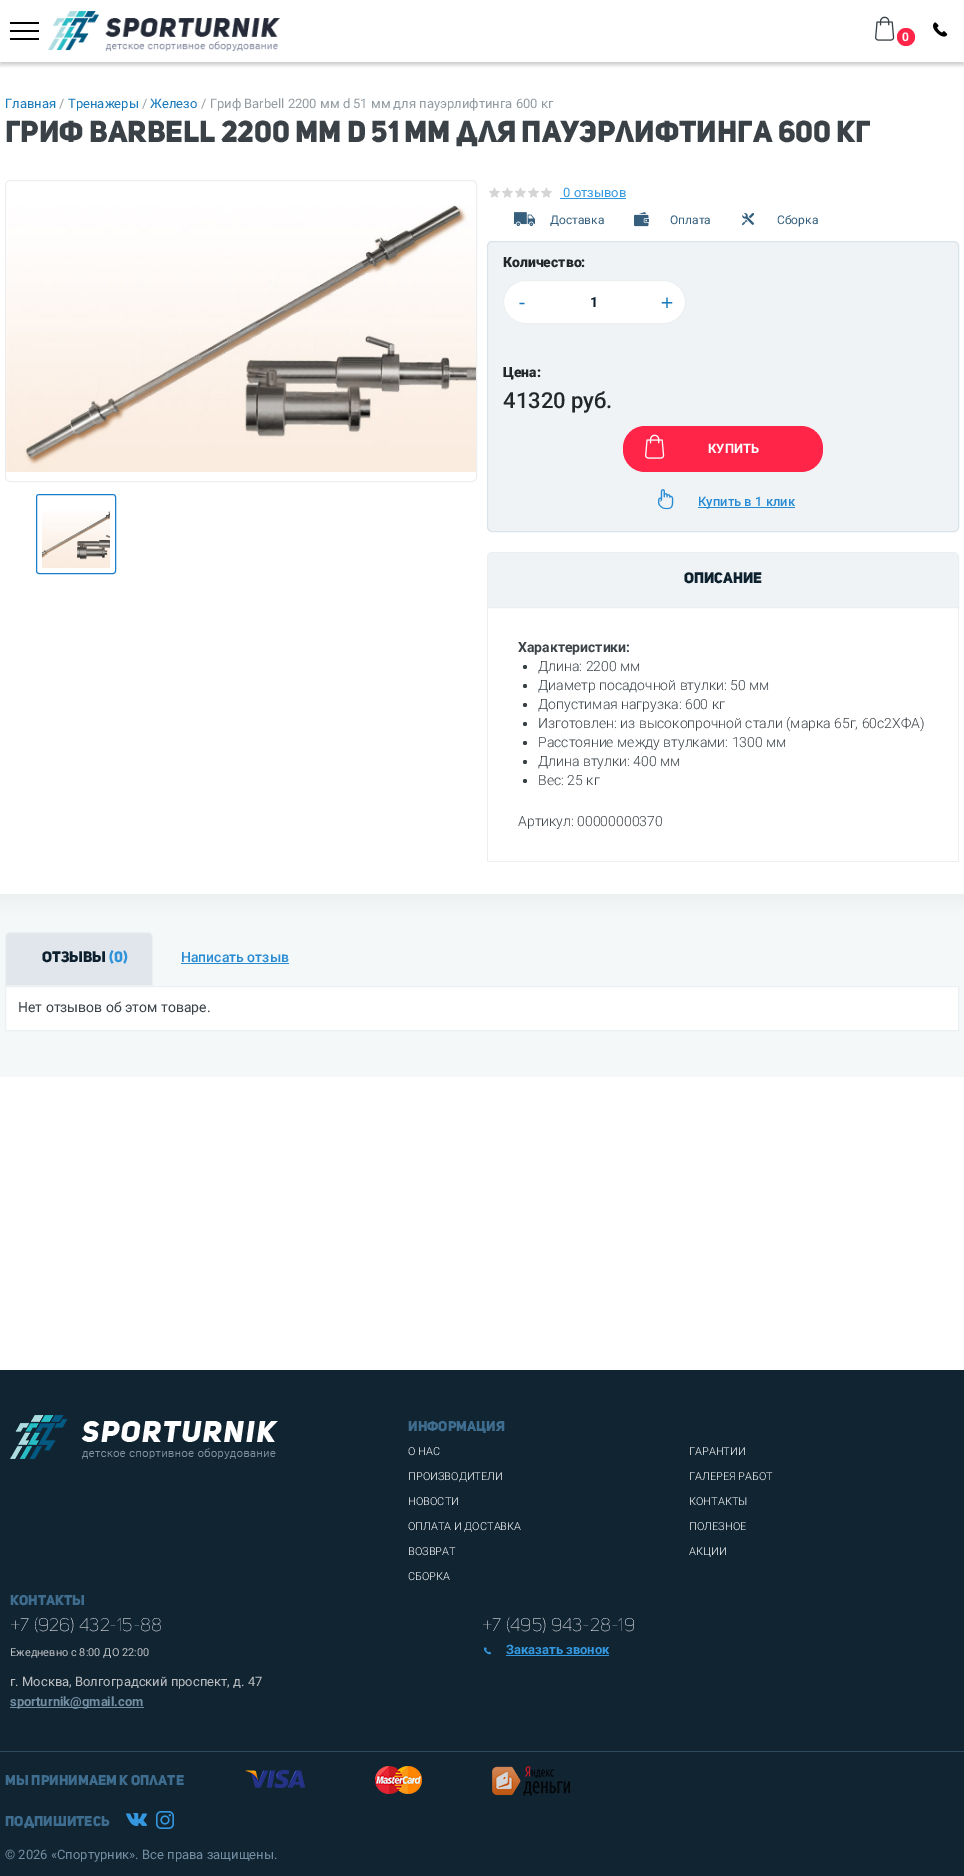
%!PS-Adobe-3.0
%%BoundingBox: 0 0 964 1876
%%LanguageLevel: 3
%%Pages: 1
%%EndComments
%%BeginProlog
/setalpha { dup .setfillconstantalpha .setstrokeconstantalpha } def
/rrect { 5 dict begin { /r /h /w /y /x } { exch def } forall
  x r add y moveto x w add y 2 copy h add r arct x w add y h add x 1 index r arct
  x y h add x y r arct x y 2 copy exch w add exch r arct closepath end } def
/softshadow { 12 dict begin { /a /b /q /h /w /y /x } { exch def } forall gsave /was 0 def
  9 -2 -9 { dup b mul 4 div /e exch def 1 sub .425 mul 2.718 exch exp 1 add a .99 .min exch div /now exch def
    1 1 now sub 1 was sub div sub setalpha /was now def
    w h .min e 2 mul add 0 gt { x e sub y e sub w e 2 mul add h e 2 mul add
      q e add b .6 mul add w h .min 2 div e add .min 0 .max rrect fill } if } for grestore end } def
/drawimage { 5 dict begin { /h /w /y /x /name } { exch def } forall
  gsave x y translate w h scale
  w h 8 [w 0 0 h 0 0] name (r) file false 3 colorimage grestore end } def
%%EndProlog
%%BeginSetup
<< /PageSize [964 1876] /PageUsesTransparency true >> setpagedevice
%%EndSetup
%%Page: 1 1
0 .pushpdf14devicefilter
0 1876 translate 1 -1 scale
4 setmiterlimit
1 setgray
0 0 964 1876 rectfill
gsave
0 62 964 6 rectclip
0 setgray
0 3 964 62 0 2 0.2 softshadow
grestore
0 setgray
10 38 29 2 rectfill
10 22 29 2 rectfill
10 30 29 2 rectfill
(images/1.raw) 48 11 232 40 drawimage
(images/2.raw) 875 16 20 25 drawimage
1 0.145 0.286 setrgbcolor
newpath 906 37 9 0 360 arc closepath fill
(images/3.raw) 933 22 15 15 drawimage
0.925 0.937 0.945 setrgbcolor
5.5 180.5 471 301 4.5 rrect stroke
(images/4.raw) 6 205 470 267 drawimage
0.102 0.498 0.788 setrgbcolor
36.5 494.5 79 79 2.5 rrect stroke
(images/5.raw) 42 511 68 57 drawimage
(images/6.raw) 489 187 11 11 drawimage
(images/6.raw) 502 187 11 11 drawimage
(images/6.raw) 515 187 11 11 drawimage
(images/6.raw) 528 187 11 11 drawimage
(images/6.raw) 541 187 11 11 drawimage
0.204 0.596 0.878 setrgbcolor
560 198 66 1 rectfill
(images/7.raw) 514 212 21 15 drawimage
(images/8.raw) 634 212 15 15 drawimage
(images/9.raw) 741 213 14 13 drawimage
0.937 0.953 0.965 setrgbcolor
487.5 241.5 471 290 4.5 rrect gsave fill grestore
0.855 0.89 0.914 setrgbcolor
stroke
1 setgray
503.5 280.5 182 43 21.5 rrect gsave fill grestore
0.925 0.937 0.945 setrgbcolor
stroke
1 0.145 0.286 setrgbcolor
623 426 200 46 22 rrect fill
(images/10.raw) 645 434 20 25 drawimage
(images/11.raw) 658 489 16 21 drawimage
0.153 0.545 0.831 setrgbcolor
698 507 97 1 rectfill
0.925 0.937 0.945 setrgbcolor
newpath 492 552.5 moveto 954 552.5 lineto 956.5 552.5 958.5 554.5 958.5 557 curveto 958.5 607.5 lineto 487.5 607.5 lineto 487.5 557 lineto 487.5 554.5 489.5 552.5 492 552.5 curveto closepath stroke
0.937 0.953 0.965 setrgbcolor
488 553 470 54 rectfill
0.925 0.937 0.945 setrgbcolor
958 608 1 254 rectfill
487 861 472 1 rectfill
487 608 1 254 rectfill
0.224 0.255 0.278 setrgbcolor
newpath 525 667 2 0 360 arc closepath fill
newpath 525 686 2 0 360 arc closepath fill
newpath 525 705 2 0 360 arc closepath fill
newpath 525 724 2 0 360 arc closepath fill
newpath 525 743 2 0 360 arc closepath fill
newpath 525 762 2 0 360 arc closepath fill
newpath 525 781 2 0 360 arc closepath fill
gsave newpath 0 894 moveto 964 894 lineto 964 1077 lineto 0 1077 lineto closepath clip newpath
<< /ShadingType 2 /ColorSpace /DeviceRGB /Coords [482 894 482 1077] /Extend [true true] /Function << /FunctionType 3 /Domain [0 1] /Functions [<< /FunctionType 2 /Domain [0 1] /C0 [0.929 0.941 0.945] /C1 [0.957 0.973 0.973] /N 1 >> << /FunctionType 2 /Domain [0 1] /C0 [0.957 0.973 0.973] /C1 [0.957 0.973 0.973] /N 1 >>] /Bounds [0.11] /Encode [0 1 0 1] >> >> shfill grestore
0.878 0.902 0.922 setrgbcolor
newpath 10 932.5 moveto 148 932.5 lineto 150.5 932.5 152.5 934.5 152.5 937 curveto 152.5 985.5 lineto 5.5 985.5 lineto 5.5 937 lineto 5.5 934.5 7.5 932.5 10 932.5 curveto closepath gsave fill grestore
0.929 0.941 0.949 setrgbcolor
stroke
0.153 0.545 0.827 setrgbcolor
181 963 108 1 rectfill
1 setgray
newpath 5.5 986.5 moveto 958.5 986.5 lineto 958.5 1030.5 lineto 5.5 1030.5 lineto closepath gsave fill grestore
0.929 0.941 0.949 setrgbcolor
stroke
0.067 0.141 0.196 setrgbcolor
0 1370 964 506 rectfill
(images/12.raw) 10 1415 268 44 drawimage
(images/13.raw) 484 1647 8 8 drawimage
0.204 0.596 0.878 setrgbcolor
506 1655 103 1 rectfill
0.447 0.557 0.635 setrgbcolor
10 1707 134 1 rectfill
0.176 0.294 0.384 setrgbcolor
0 1751 964 1 rectfill
(images/14.raw) 245 1770 60 18 drawimage
(images/15.raw) 375 1766 47 28 drawimage
(images/16.raw) 492 1766 78 30 drawimage
(images/17.raw) 126 1813 21 13 drawimage
(images/18.raw) 156 1811 18 18 drawimage
/Roboto-Bold [12 0 0 -12 0 0] selectfont
1 setgray
902 41 moveto (0) show
/Roboto-Regular [13 0 0 -13 0 0] selectfont
0.09 0.475 0.729 setrgbcolor
5 108 moveto (Главная) show
0.569 0.608 0.631 setrgbcolor
59 108 moveto (/) show
0.09 0.475 0.729 setrgbcolor
68 108 moveto (Тренажеры) show
0.569 0.608 0.631 setrgbcolor
142 108 moveto (/) show
0.09 0.475 0.729 setrgbcolor
150 108 moveto (Железо) show
0.569 0.608 0.631 setrgbcolor
201 108 moveto (/ Гриф Barbell 2200 мм d 51 мм для пауэрлифтинга 600 кг) show
/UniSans-Black [30 0 0 -30 0 0] selectfont
0.227 0.259 0.282 setrgbcolor
5 142 moveto (Гриф Barbell 2200 мм d 51 мм для пауэрлифтинга 600 кг) show
/Roboto-Regular [13 0 0 -13 0 0] selectfont
0.204 0.596 0.878 setrgbcolor
563 197 moveto (0 отзывов) show
/Roboto-Regular [12 0 0 -12 0 0] selectfont
0.208 0.373 0.49 setrgbcolor
550 224 moveto (Доставка) show
670 224 moveto (Оплата) show
777 224 moveto (Сборка) show
/Roboto-Black [14 0 0 -14 0 0] selectfont
0.133 0.153 0.165 setrgbcolor
503 267 moveto (Количество:) show
/DejaVuSansMono-Regular [20 0 0 -20 0 0] selectfont
0.09 0.475 0.729 setrgbcolor
516 309 moveto (-) show
/Roboto-Bold [14 0 0 -14 0 0] selectfont
0.047 0.125 0.18 setrgbcolor
590 307 moveto (1) show
/DejaVuSansMono-Regular [20 0 0 -20 0 0] selectfont
0.09 0.475 0.729 setrgbcolor
661 309 moveto (+) show
/Roboto-Black [14 0 0 -14 0 0] selectfont
0.133 0.153 0.165 setrgbcolor
503 377 moveto (Цена:) show
/Roboto-Medium [22 0 0 -22 0 0] selectfont
503 408 moveto (41320 руб.) show
/Roboto-Bold [13 0 0 -13 0 0] selectfont
1 setgray
708 453 moveto (КУПИТЬ) show
/Roboto-Medium [13 0 0 -13 0 0] selectfont
0.153 0.545 0.831 setrgbcolor
698 506 moveto (Купить в 1 клик) show
/UniSans-Black [15 0 0 -15 0 0] selectfont
0.047 0.125 0.18 setrgbcolor
684 583 moveto (ОПИСАНИЕ) show
/Roboto-Bold [14 0 0 -14 0 0] selectfont
0.227 0.259 0.282 setrgbcolor
518 652 moveto (Характеристики:) show
/Roboto-Light [14 0 0 -14 0 0] selectfont
538 671 moveto (Длина: 2200 мм) show
538 690 moveto (Диаметр посадочной втулки: 50 мм) show
538 709 moveto (Допустимая нагрузка: 600 кг) show
538 728 moveto (Изготовлен: из высокопрочной стали \(марка 65г, 60с2ХФА\)) show
538 747 moveto (Расстояние между втулками: 1300 мм) show
538 766 moveto (Длина втулки: 400 мм) show
538 785 moveto (Вес: 25 кг) show
518 826 moveto (Артикул: 00000000370) show
/UniSans-Black [15 0 0 -15 0 0] selectfont
0.047 0.125 0.18 setrgbcolor
42 962 moveto (Отзывы) show
0.184 0.576 0.855 setrgbcolor
109 962 moveto (\(0\)) show
/Roboto-Medium [14 0 0 -14 0 0] selectfont
0.153 0.545 0.831 setrgbcolor
181 962 moveto (Написать отзыв) show
/Roboto-Regular [14 0 0 -14 0 0] selectfont
0.227 0.259 0.282 setrgbcolor
18 1012 moveto (Нет отзывов об этом товаре.) show
/UniSans-Black [14 0 0 -14 0 0] selectfont
0.243 0.427 0.561 setrgbcolor
408 1431 moveto (информация) show
/Roboto-Light [11 0 0 -11 0 0] selectfont
1 setgray
408 1455 moveto (О НАС) show
689 1455 moveto (ГАРАНТИИ) show
408 1480 moveto (ПРОИЗВОДИТЕЛИ) show
689 1480 moveto (ГАЛЕРЕЯ РАБОТ) show
408 1505 moveto (НОВОСТИ) show
689 1505 moveto (КОНТАКТЫ) show
408 1530 moveto (ОПЛАТА И ДОСТАВКА) show
689 1530 moveto (ПОЛЕЗНОЕ) show
408 1555 moveto (ВОЗВРАТ) show
689 1555 moveto (АКЦИИ) show
408 1580 moveto (СБОРКА) show
/UniSans-Black [14 0 0 -14 0 0] selectfont
0.243 0.427 0.561 setrgbcolor
10 1605 moveto (Контакты) show
/UniSans-Thin [18 0 0 -18 0 0] selectfont
1 setgray
10 1631 moveto (+7 \(926\) 432-15-88) show
/Roboto-Regular [11 0 0 -11 0 0] selectfont
0.737 0.749 0.761 setrgbcolor
10 1656 moveto (Ежедневно с 8:00 ДО 22:00) show
/UniSans-Thin [18 0 0 -18 0 0] selectfont
1 setgray
482 1631 moveto (+7 \(495\) 943-28-19) show
/Roboto-Bold [13 0 0 -13 0 0] selectfont
0.204 0.596 0.878 setrgbcolor
506 1654 moveto (Заказать звонок) show
/Roboto-Regular [13 0 0 -13 0 0] selectfont
0.737 0.749 0.761 setrgbcolor
10 1686 moveto (г. Москва, Волгоградский проспект, д. 47) show
/Roboto-Bold [13 0 0 -13 0 0] selectfont
0.447 0.557 0.635 setrgbcolor
10 1706 moveto (sporturnik@gmail.com) show
/UniSans-Black [14 0 0 -14 0 0] selectfont
0.243 0.427 0.561 setrgbcolor
5 1785 moveto (Мы принимаем к оплате) show
5 1826 moveto (Подпишитесь) show
/Roboto-Regular [13 0 0 -13 0 0] selectfont
0.447 0.557 0.635 setrgbcolor
5 1859 moveto (© 2026 «Спортурник». Все права защищены.) show
.poppdf14devicefilter showpage
%%EOF
